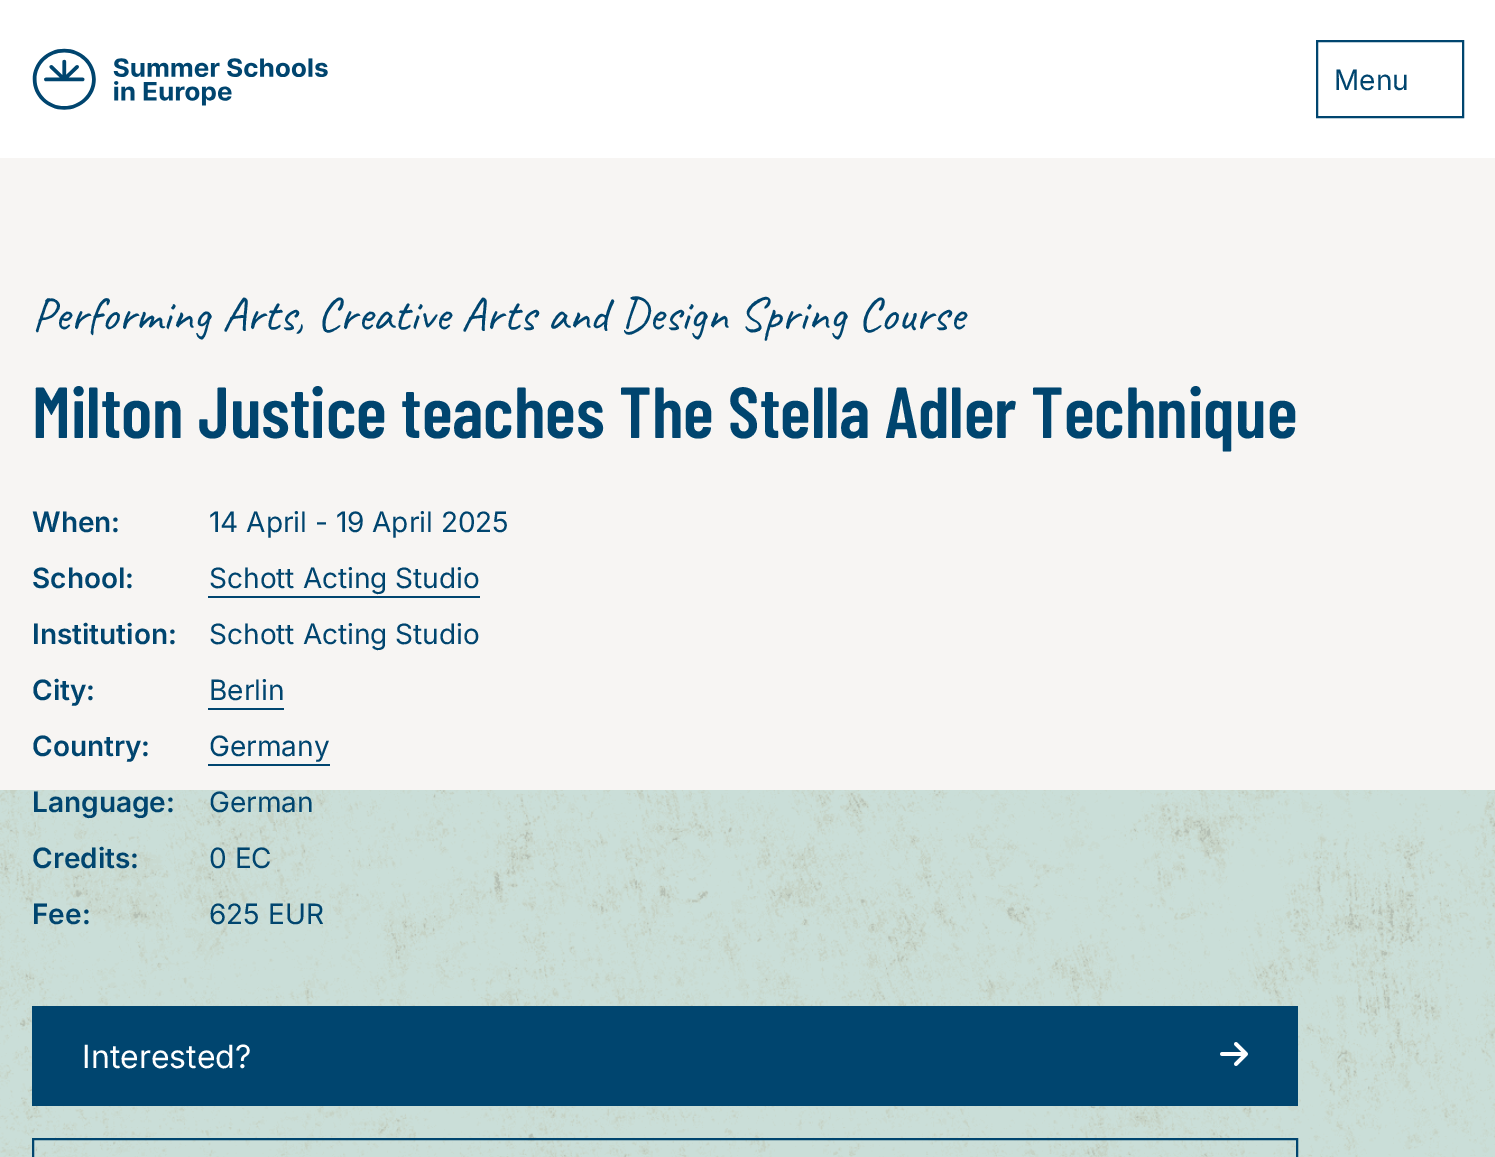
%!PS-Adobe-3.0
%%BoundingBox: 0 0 1495 1157
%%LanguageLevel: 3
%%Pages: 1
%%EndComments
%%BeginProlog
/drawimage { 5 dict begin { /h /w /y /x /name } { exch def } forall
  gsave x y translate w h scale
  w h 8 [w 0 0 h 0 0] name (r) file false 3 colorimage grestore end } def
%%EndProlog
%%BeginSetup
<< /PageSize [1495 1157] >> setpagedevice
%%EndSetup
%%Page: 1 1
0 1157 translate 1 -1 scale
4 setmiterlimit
0.969 0.961 0.953 setrgbcolor
0 0 1495 1157 rectfill
1 setgray
0 0 1495 158 rectfill
(images/1.raw) 32 48 296 62 drawimage
0 0.271 0.435 setrgbcolor
2 setlinewidth
1317 41 146 76 rectstroke
208 596 272 2 rectfill
208 708 76 2 rectfill
208 764 122 2 rectfill
0.745 0.851 0.831 setrgbcolor
0 790 1495 367 rectfill
(images/3.raw) 0 790 1495 367 drawimage
0 0.271 0.435 setrgbcolor
32 1006 1266 100 rectfill
(images/2.raw) 1220 1042 28 24 drawimage
33 1139 1264 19 rectstroke
/Inter-Regular [28 0 0 -28 0 0] selectfont
1334 90 moveto (Menu) show
/Caveat-Regular [48 0 0 -48 0 0] selectfont
32 330 moveto 0.25 0 32 (Performing Arts, Creative Arts and Design Spring Course) widthshow
/BarlowCondensed-SemiBold [72 0 0 -72 0 0] selectfont
32 438 moveto (Milton Justice teaches The Stella Adler Technique) show
/Inter-SemiBold [28 0 0 -28 0 0] selectfont
32 532 moveto (When:) show
/Inter-Regular [28 0 0 -28 0 0] selectfont
209 532 moveto (14 April - 19 April 2025) show
/Inter-SemiBold [28 0 0 -28 0 0] selectfont
32 588 moveto (School:) show
/Inter-Regular [28 0 0 -28 0 0] selectfont
209 588 moveto (Schott Acting Studio) show
/Inter-SemiBold [28 0 0 -28 0 0] selectfont
32 644 moveto (Institution:) show
/Inter-Regular [28 0 0 -28 0 0] selectfont
209 644 moveto (Schott Acting Studio) show
/Inter-SemiBold [28 0 0 -28 0 0] selectfont
32 700 moveto (City:) show
/Inter-Regular [28 0 0 -28 0 0] selectfont
209 700 moveto (Berlin) show
/Inter-SemiBold [28 0 0 -28 0 0] selectfont
32 756 moveto (Country:) show
/Inter-Regular [28 0 0 -28 0 0] selectfont
209 756 moveto (Germany) show
/Inter-SemiBold [28 0 0 -28 0 0] selectfont
32 812 moveto (Language:) show
/Inter-Regular [28 0 0 -28 0 0] selectfont
209 812 moveto (German) show
/Inter-SemiBold [28 0 0 -28 0 0] selectfont
32 868 moveto (Credits:) show
/Inter-Regular [28 0 0 -28 0 0] selectfont
209 868 moveto (0 EC) show
/Inter-SemiBold [28 0 0 -28 0 0] selectfont
32 924 moveto (Fee:) show
/Inter-Regular [28 0 0 -28 0 0] selectfont
209 924 moveto (625 EUR) show
/Inter-Regular [32 0 0 -32 0 0] selectfont
1 setgray
82 1068 moveto (Interested?) show
showpage
%%EOF
